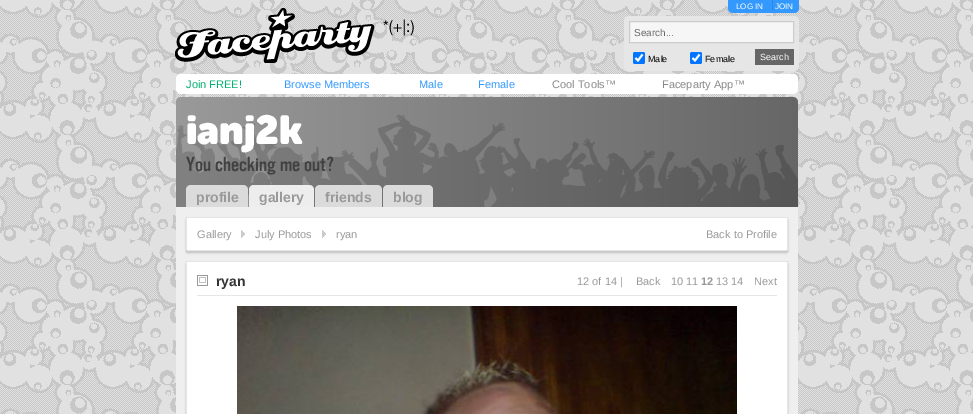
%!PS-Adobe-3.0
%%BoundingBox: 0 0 973 414
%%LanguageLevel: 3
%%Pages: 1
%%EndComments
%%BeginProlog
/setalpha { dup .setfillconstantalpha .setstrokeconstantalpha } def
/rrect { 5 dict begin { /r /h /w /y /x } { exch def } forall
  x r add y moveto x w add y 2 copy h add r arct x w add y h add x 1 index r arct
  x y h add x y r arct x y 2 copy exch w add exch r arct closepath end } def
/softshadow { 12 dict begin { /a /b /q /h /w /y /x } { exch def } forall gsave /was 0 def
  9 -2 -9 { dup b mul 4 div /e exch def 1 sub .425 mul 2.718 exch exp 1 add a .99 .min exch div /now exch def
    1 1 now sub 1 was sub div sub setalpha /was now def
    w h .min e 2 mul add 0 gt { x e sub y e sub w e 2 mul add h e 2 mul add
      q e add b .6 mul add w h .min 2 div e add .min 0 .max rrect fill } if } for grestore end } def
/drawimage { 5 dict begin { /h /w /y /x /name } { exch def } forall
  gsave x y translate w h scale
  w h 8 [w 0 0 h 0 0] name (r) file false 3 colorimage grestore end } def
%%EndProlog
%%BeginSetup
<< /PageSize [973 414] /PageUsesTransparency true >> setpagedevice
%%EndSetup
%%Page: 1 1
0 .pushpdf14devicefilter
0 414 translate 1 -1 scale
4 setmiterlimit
1 setgray
0 0 973 414 rectfill
(images/1.raw) 0 0 973 414 drawimage
(images/2.raw) 175 8 239 55 drawimage
0.2 0.6 1 setrgbcolor
newpath 728 0 moveto 799 0 lineto 799 8 lineto 799 11 797 13 794 13 curveto 733 13 lineto 730 13 728 11 728 8 curveto closepath fill
0.18 0.537 0.898 setrgbcolor
772 0 1 11 rectfill
0.902 setgray
624 16 175 55 5 rrect fill
0.965 setgray
newpath 629.5 21.5 moveto 793.5 21.5 lineto 793.5 42.5 lineto 629.5 42.5 lineto closepath gsave fill grestore
0.8 setgray
stroke
0 0.459 1 setrgbcolor
633 52 12 12 2 rrect fill
1 setgray
1.9 setlinewidth
newpath 635.5 58 moveto 638 60.5 lineto 642.5 54.5 lineto stroke
0 0.459 1 setrgbcolor
690 52 12 12 2 rrect fill
1 setgray
newpath 692.5 58 moveto 695 60.5 lineto 699.5 54.5 lineto stroke
0.4 setgray
755 49 39 16 rectfill
1 setgray
176 74 622 20 5 rrect fill
(images/3.raw) 176 97 622 110 drawimage
0.859 setgray
newpath 191 185 moveto 243 185 lineto 246 185 248 187 248 190 curveto 248 207 lineto 186 207 lineto 186 190 lineto 186 187 188 185 191 185 curveto closepath fill
0.929 setgray
newpath 254 185 moveto 309 185 lineto 312 185 314 187 314 190 curveto 314 207 lineto 249 207 lineto 249 190 lineto 249 187 251 185 254 185 curveto closepath fill
0.859 setgray
newpath 320 185 moveto 377 185 lineto 380 185 382 187 382 190 curveto 382 207 lineto 315 207 lineto 315 190 lineto 315 187 317 185 320 185 curveto closepath fill
newpath 388 185 moveto 428 185 lineto 431 185 433 187 433 190 curveto 433 207 lineto 383 207 lineto 383 190 lineto 383 187 385 185 388 185 curveto closepath fill
0.937 setgray
176 207 622 10 rectfill
176 217 10 34 rectfill
788 217 10 34 rectfill
176 251 622 10 rectfill
0 setgray
186 219 602 34 2 1 0.2 softshadow
0.898 setgray
1 setlinewidth
186.5 217.5 601 33 1.5 rrect stroke
1 setgray
187 218 600 32 rectfill
(images/4.raw) 241 230 4 8 drawimage
(images/4.raw) 322 230 4 8 drawimage
0.937 setgray
176 261 10 153 rectfill
788 261 10 153 rectfill
0 setgray
186 263 602 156 2 1 0.2 softshadow
0.898 setgray
186.5 261.5 601 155 1.5 rrect stroke
1 setgray
187 262 600 152 rectfill
(images/5.raw) 197 275 11 11 drawimage
0.902 setgray
197 295 580 1 rectfill
(images/6.raw) 237 306 500 108 drawimage
/LiberationSans-Regular [8 0 0 -8 0 0] selectfont
1 setgray
736 9 moveto (LOG IN) show
775 9 moveto (JOIN) show
/LiberationSans-Regular [10 0 0 -10 0 0] selectfont
0.4 setgray
634 36 moveto (Search...) show
/LiberationSans-Regular [9 0 0 -9 0 0] selectfont
0 setgray
648 62 moveto (Male) show
705 62 moveto (Female) show
1 setgray
760 60 moveto (Search) show
/LiberationSans-Regular [11 0 0 -11 0 0] selectfont
0 0.69 0.439 setrgbcolor
186 88 moveto (Join FREE!) show
0.2 0.6 1 setrgbcolor
284 88 moveto (Browse Members) show
419 88 moveto (Male) show
478 88 moveto (Female) show
0.533 setgray
552 88 moveto (Cool Tools™) show
662 88 moveto (Faceparty App™) show
/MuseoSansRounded-Black [40 0 0 -40 0 0] selectfont
1 setgray
186 144 moveto (ianj2k) show
/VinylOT-Regular [20 0 0 -20 0 0] selectfont
0.255 setgray
186 171 moveto (You checking me out?) show
/LiberationSans-Bold [14 0 0 -14 0 0] selectfont
0.6 setgray
196 202 moveto (profile) show
259 202 moveto (gallery) show
325 202 moveto (friends) show
393 202 moveto (blog) show
/LiberationSans-Regular [11 0 0 -11 0 0] selectfont
197 238 moveto (Gallery) show
255 238 moveto (July Photos) show
336 238 moveto (ryan) show
706 238 moveto (Back to Profile) show
/LiberationSans-Bold [14 0 0 -14 0 0] selectfont
0.2 setgray
216 286 moveto (ryan) show
/LiberationSans-Regular [11 0 0 -11 0 0] selectfont
0.6 setgray
577 285 moveto (12 of 14 |) show
636 285 moveto (Back) show
671 285 moveto (10 11) show
/LiberationSans-Bold [11 0 0 -11 0 0] selectfont
701 285 moveto (12) show
/LiberationSans-Regular [11 0 0 -11 0 0] selectfont
716 285 moveto (13 14) show
754 285 moveto (Next) show
.poppdf14devicefilter showpage
%%EOF
